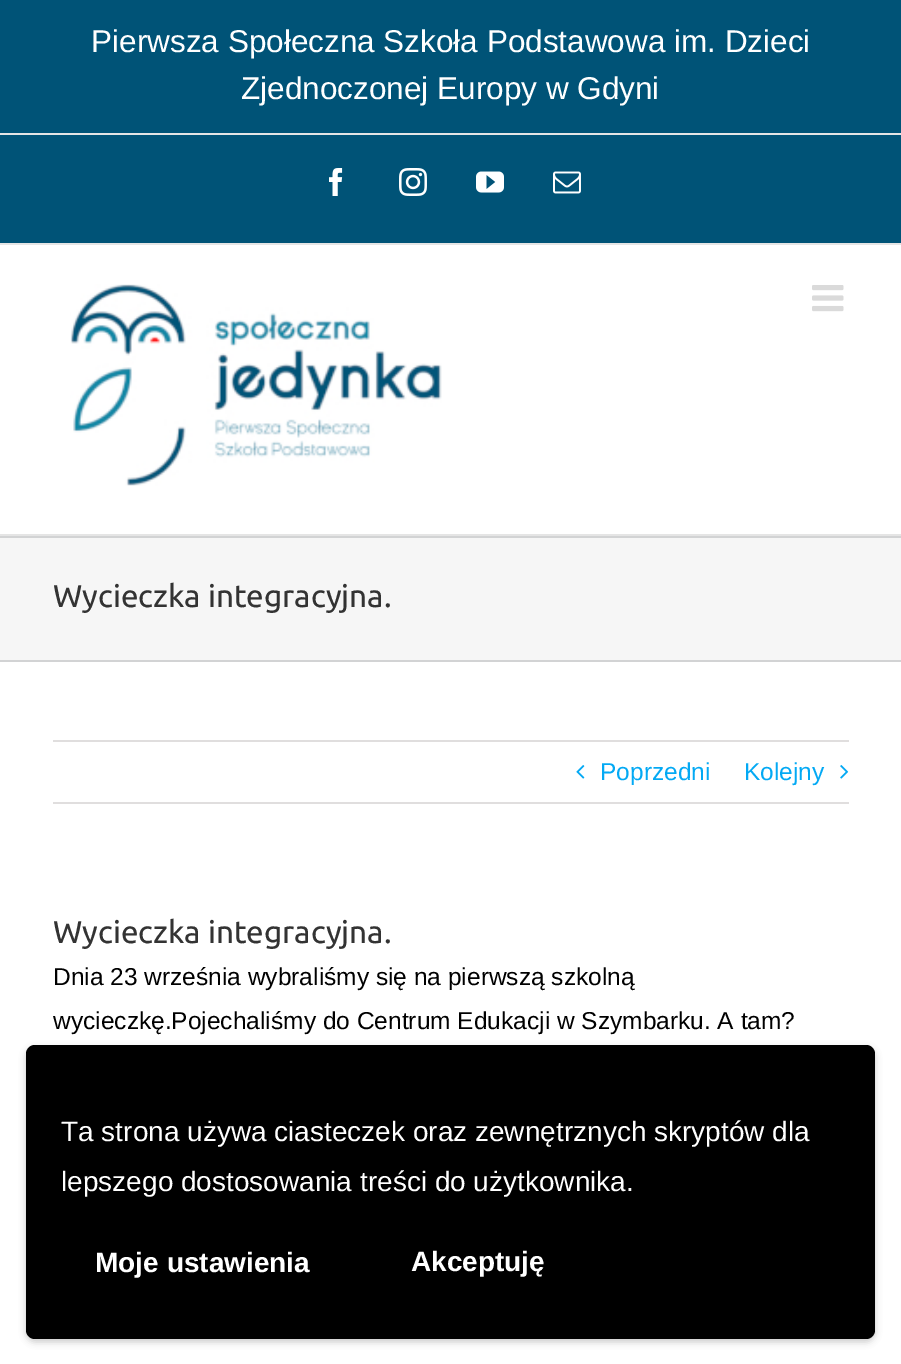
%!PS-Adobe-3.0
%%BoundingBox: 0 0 901 1364
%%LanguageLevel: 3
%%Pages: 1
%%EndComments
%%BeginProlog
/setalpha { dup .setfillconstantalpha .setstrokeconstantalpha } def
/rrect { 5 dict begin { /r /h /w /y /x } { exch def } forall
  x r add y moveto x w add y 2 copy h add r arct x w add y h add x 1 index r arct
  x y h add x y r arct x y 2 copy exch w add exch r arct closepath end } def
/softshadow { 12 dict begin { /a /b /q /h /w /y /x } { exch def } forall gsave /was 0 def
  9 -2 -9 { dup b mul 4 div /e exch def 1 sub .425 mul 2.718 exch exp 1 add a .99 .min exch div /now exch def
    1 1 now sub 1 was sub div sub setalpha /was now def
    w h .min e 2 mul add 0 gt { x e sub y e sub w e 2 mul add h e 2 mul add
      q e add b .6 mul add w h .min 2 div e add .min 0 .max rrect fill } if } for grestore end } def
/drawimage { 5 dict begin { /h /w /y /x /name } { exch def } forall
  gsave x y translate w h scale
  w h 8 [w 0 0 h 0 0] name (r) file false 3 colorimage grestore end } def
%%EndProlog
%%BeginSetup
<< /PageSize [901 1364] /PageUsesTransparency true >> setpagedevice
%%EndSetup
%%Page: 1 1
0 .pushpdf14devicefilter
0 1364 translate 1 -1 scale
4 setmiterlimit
1 setgray
0 0 901 1364 rectfill
0 0.325 0.467 setrgbcolor
0 0 901 243 rectfill
0.898 setgray
0 243 901 2 rectfill
0 133 901 2 rectfill
(images/1.raw) 329 168 14 28 drawimage
(images/2.raw) 399 168 28 28 drawimage
(images/3.raw) 476 171 28 22 drawimage
(images/4.raw) 553 171 28 23 drawimage
0 534 901 2 rectfill
(images/5.raw) 70 284 372 202 drawimage
(images/6.raw) 812 285 32 27 drawimage
0.965 setgray
0 538 901 122 rectfill
0.824 0.827 0.831 setrgbcolor
0 536 901 2 rectfill
0 660 901 2 rectfill
0.878 0.871 0.871 setrgbcolor
53 740 796 2 rectfill
53 802 796 2 rectfill
(images/7.raw) 576 765 9 14 drawimage
(images/8.raw) 840 765 9 14 drawimage
0 setgray
26 1048 849 294 9 3.5 0.2 softshadow
26 1045 849 294 9 rrect fill
/LiberationSans-Regular [31.5 0 0 -31.5 0 0] selectfont
1 setgray
91 52 moveto (Pierwsza Społeczna Szkoła Podstawowa im. Dzieci) show
241 99 moveto (Zjednoczonej Europy w Gdyni) show
/Ubuntu-Regular [31.5 0 0 -31.5 0 0] selectfont
0.2 setgray
53 607 moveto (Wycieczka integracyjna.) show
/LiberationSans-Regular [24.5 0 0 -24.5 0 0] selectfont
0.012 0.663 0.957 setrgbcolor
600 780 moveto (Poprzedni) show
744 780 moveto (Kolejny) show
/Ubuntu-Regular [31.5 0 0 -31.5 0 0] selectfont
0.2 setgray
53 943 moveto (Wycieczka integracyjna.) show
/LiberationSans-Regular [24.5 0 0 -24.5 0 0] selectfont
0 setgray
53 985 moveto (Dnia 23 września wybraliśmy się na pierwszą szkolną) show
53 1029 moveto (wycieczkę.Pojechaliśmy do Centrum Edukacji w Szymbarku. A tam?) show
/LiberationSans-Regular [28 0 0 -28 0 0] selectfont
1 setgray
61 1141 moveto (Ta strona używa ciasteczek oraz zewnętrznych skryptów dla) show
61 1191 moveto (lepszego dostosowania treści do użytkownika.) show
/LiberationSans-Bold [28 0 0 -28 0 0] selectfont
95 1272 moveto (Moje ustawienia) show
411 1271 moveto (Akceptuję) show
.poppdf14devicefilter showpage
%%EOF
